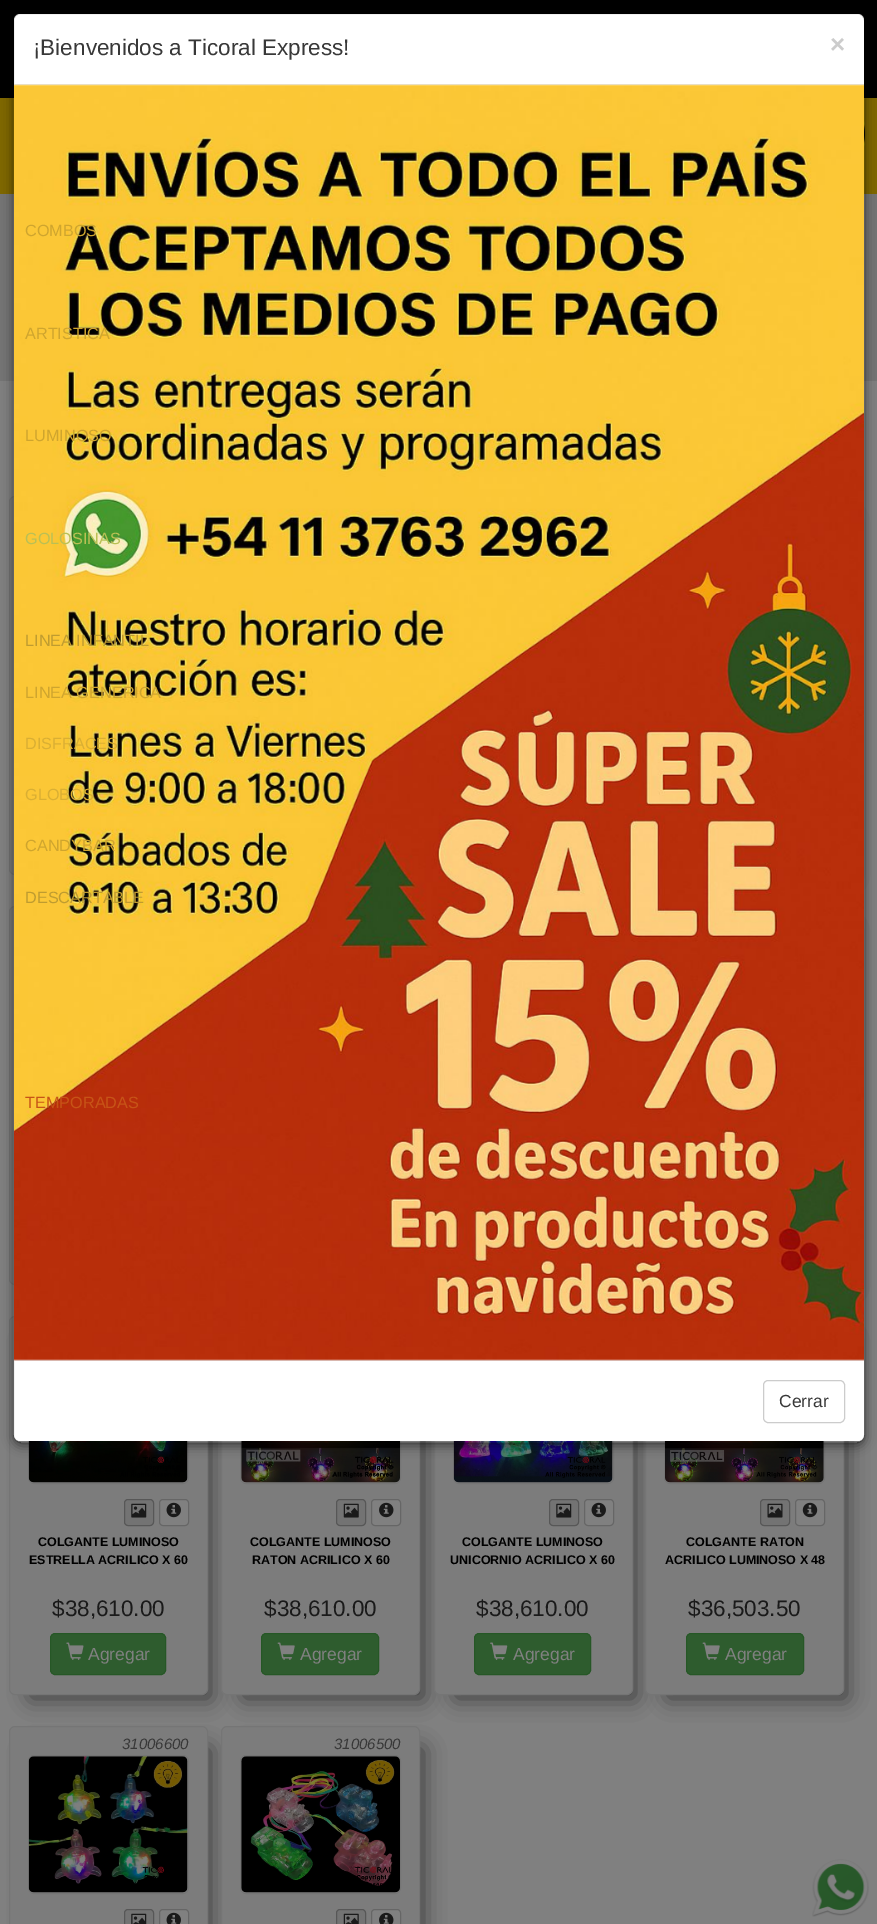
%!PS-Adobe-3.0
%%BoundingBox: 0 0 877 1924
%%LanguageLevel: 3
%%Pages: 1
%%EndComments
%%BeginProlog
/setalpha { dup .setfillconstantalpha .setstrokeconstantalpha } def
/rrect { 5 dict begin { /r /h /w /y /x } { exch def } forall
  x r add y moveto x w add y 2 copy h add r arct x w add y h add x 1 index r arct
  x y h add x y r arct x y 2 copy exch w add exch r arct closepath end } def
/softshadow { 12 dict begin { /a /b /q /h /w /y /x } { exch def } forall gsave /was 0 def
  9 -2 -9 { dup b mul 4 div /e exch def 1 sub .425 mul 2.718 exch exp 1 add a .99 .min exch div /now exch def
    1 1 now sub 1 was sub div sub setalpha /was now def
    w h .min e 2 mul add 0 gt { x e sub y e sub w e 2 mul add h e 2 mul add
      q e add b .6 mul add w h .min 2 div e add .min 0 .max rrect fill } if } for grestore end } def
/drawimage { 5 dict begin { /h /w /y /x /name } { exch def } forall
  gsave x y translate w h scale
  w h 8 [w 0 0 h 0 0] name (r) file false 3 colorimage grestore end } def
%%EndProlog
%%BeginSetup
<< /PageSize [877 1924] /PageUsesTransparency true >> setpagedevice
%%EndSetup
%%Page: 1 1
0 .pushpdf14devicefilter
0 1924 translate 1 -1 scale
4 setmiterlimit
0.502 setgray
0 0 877 1924 rectfill
0 setgray
0 0 877 98 rectfill
0.498 0.408 0 setrgbcolor
0 98 877 96 rectfill
(images/1.raw) 864 106 1 56 drawimage
0.459 setgray
0 194 877 187 rectfill
0.486 setgray
9.5 496.5 198 378 5.5 rrect gsave fill grestore
0.459 setgray
stroke
0.486 setgray
9.5 906.5 198 378 5.5 rrect gsave fill grestore
0.459 setgray
stroke
0 setgray
31 1339 179 359 0 11 0.56 softshadow
0.486 setgray
9.5 1316.5 198 378 5.5 rrect gsave fill grestore
0.459 setgray
stroke
28.5 1345.5 160 138 5.5 rrect stroke
(images/3.raw) 28 1441 160 42 drawimage
0 setgray
244 1339 179 359 0 11 0.56 softshadow
0.486 setgray
221.5 1316.5 198 378 5.5 rrect gsave fill grestore
0.459 setgray
stroke
240.5 1345.5 160 138 5.5 rrect stroke
(images/7.raw) 241 1441 159 42 drawimage
0 setgray
456 1339 179 359 0 11 0.56 softshadow
0.486 setgray
434.5 1316.5 198 378 5.5 rrect gsave fill grestore
0.459 setgray
stroke
453.5 1345.5 160 138 5.5 rrect stroke
(images/11.raw) 453 1441 160 42 drawimage
0 setgray
668 929 178 359 0 11 0.56 softshadow
668 1339 178 359 0 11 0.56 softshadow
0.486 setgray
645.5 1316.5 198 378 5.5 rrect gsave fill grestore
0.459 setgray
stroke
664.5 1345.5 160 138 5.5 rrect stroke
(images/13.raw) 665 1441 159 42 drawimage
gsave
newpath 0 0 moveto 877 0 lineto 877 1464 lineto 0 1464 lineto closepath 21 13 moveto 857 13 lineto 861.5 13 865 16.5 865 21 curveto 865 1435 lineto 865 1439.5 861.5 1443 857 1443 curveto 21 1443 lineto 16.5 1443 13 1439.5 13 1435 curveto 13 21 lineto 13 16.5 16.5 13 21 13 curveto closepath eoclip newpath
0 setgray
13 16 852 1430 8 5.5 0.5 softshadow
grestore
0 setgray
668 519 178 359 0 11 0.56 softshadow
1 setgray
14 14 850 1427 6 rrect fill
0.2 setalpha
0 setgray
13.5 13.5 851 1429 7.5 rrect stroke
1 setalpha
0.898 setgray
14 84 850 1 rectfill
14 1360 850 1 rectfill
(images/2.raw) 14 84 850 1277 drawimage
0.8 setgray
763.5 1380.5 81 42 4.5 rrect stroke
0.451 setgray
124.5 1499.5 29 26 3.5 rrect gsave fill grestore
0.341 setgray
stroke
(images/4.raw) 131 1503 16 15 drawimage
0.502 setgray
159.5 1499.5 29 26 3.5 rrect gsave fill grestore
0.4 setgray
stroke
(images/5.raw) 166 1502 15 16 drawimage
0.18 0.361 0.18 setrgbcolor
50.5 1633.5 115 41 4.5 rrect gsave fill grestore
0.149 0.341 0.149 setrgbcolor
stroke
(images/6.raw) 66 1642 18 18 drawimage
0.451 setgray
336.5 1499.5 29 26 3.5 rrect gsave fill grestore
0.341 setgray
stroke
(images/8.raw) 343 1503 16 15 drawimage
0.502 setgray
371.5 1499.5 29 26 3.5 rrect gsave fill grestore
0.4 setgray
stroke
(images/9.raw) 379 1502 15 16 drawimage
0.18 0.361 0.18 setrgbcolor
261.5 1633.5 117 41 4.5 rrect gsave fill grestore
0.149 0.341 0.149 setrgbcolor
stroke
(images/10.raw) 277 1642 18 18 drawimage
0.451 setgray
549.5 1499.5 29 26 3.5 rrect gsave fill grestore
0.341 setgray
stroke
(images/4.raw) 556 1503 16 15 drawimage
0.502 setgray
584.5 1499.5 29 26 3.5 rrect gsave fill grestore
0.4 setgray
stroke
(images/5.raw) 591 1502 15 16 drawimage
0.18 0.361 0.18 setrgbcolor
474.5 1633.5 116 41 4.5 rrect gsave fill grestore
0.149 0.341 0.149 setrgbcolor
stroke
(images/12.raw) 490 1642 18 18 drawimage
0.451 setgray
760.5 1499.5 29 26 3.5 rrect gsave fill grestore
0.341 setgray
stroke
(images/14.raw) 767 1503 16 15 drawimage
0.502 setgray
795.5 1499.5 29 26 3.5 rrect gsave fill grestore
0.4 setgray
stroke
(images/15.raw) 802 1502 16 16 drawimage
0.18 0.361 0.18 setrgbcolor
686.5 1633.5 117 41 4.5 rrect gsave fill grestore
0.149 0.341 0.149 setrgbcolor
stroke
(images/10.raw) 702 1642 18 18 drawimage
0 setgray
31 1749 179 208 0 11 0.56 softshadow
0.486 setgray
9.5 1726.5 198 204 5.5 rrect gsave fill grestore
0.459 setgray
stroke
28.5 1755.5 160 138 5.5 rrect stroke
(images/16.raw) 28 1756 160 137 drawimage
0.451 setgray
124.5 1909.5 29 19 3.5 rrect gsave fill grestore
0.341 setgray
stroke
(images/17.raw) 131 1913 16 11 drawimage
0.502 setgray
159.5 1909.5 29 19 3.5 rrect gsave fill grestore
0.4 setgray
stroke
(images/18.raw) 166 1912 15 12 drawimage
0 setgray
244 1749 179 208 0 11 0.56 softshadow
0.486 setgray
221.5 1726.5 198 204 5.5 rrect gsave fill grestore
0.459 setgray
stroke
240.5 1755.5 160 138 5.5 rrect stroke
(images/19.raw) 241 1756 159 137 drawimage
0.451 setgray
336.5 1909.5 29 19 3.5 rrect gsave fill grestore
0.341 setgray
stroke
(images/20.raw) 343 1913 16 11 drawimage
0.502 setgray
371.5 1909.5 29 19 3.5 rrect gsave fill grestore
0.4 setgray
stroke
(images/21.raw) 379 1912 15 12 drawimage
(images/22.raw) 812 1859 57 58 drawimage
/LiberationSans-Regular [22.5 0 0 -22.5 0 0] selectfont
0.22 setgray
33 55 moveto (¡Bienvenidos a Ticoral Express!) show
/LiberationSans-Bold [26 0 0 -26 0 0] selectfont
0.8 setgray
830 53 moveto (×) show
/LiberationSans-Regular [17.5 0 0 -17.5 0 0] selectfont
0.22 setgray
779 1407 moveto (Cerrar) show
/LiberationSans-Regular [16.25 0 0 -16.25 0 0] selectfont
0.812 0.647 0.18 setrgbcolor
25 236 moveto (COMBOS) show
25 339 moveto (ARTISTICA) show
25 441 moveto (LUMINOSO) show
0.729 0.753 0.329 setrgbcolor
25 544 moveto (GOLOSINAS) show
0.749 0.612 0.188 setrgbcolor
25 646 moveto (LINEA INFANTIL) show
0.812 0.647 0.18 setrgbcolor
25 698 moveto (LINEA GENERICA) show
0.855 0.686 0.2 setrgbcolor
25 749 moveto (DISFRACES) show
25 800 moveto (GLOBOS) show
0.812 0.647 0.18 setrgbcolor
25 851 moveto (CANDYBAR) show
0.749 0.612 0.188 setrgbcolor
25 903 moveto (DESCARTABLE) show
0.78 0.329 0.086 setrgbcolor
25 1108 moveto (TEMPORADAS) show
/LiberationSans-Bold [12.5 0 0 -12.5 0 0] selectfont
0 setgray
38 1546 moveto (COLGANTE LUMINOSO) show
29 1564 moveto (ESTRELLA ACRILICO X 60) show
/LiberationSans-Regular [22.5 0 0 -22.5 0 0] selectfont
0.102 setgray
52 1616 moveto ($38,610.00) show
/LiberationSans-Regular [17.5 0 0 -17.5 0 0] selectfont
0.502 setgray
88 1660 moveto (Agregar) show
/LiberationSans-Bold [12.5 0 0 -12.5 0 0] selectfont
0 setgray
250 1546 moveto (COLGANTE LUMINOSO) show
252 1564 moveto (RATON ACRILICO X 60) show
/LiberationSans-Regular [22.5 0 0 -22.5 0 0] selectfont
0.102 setgray
264 1616 moveto ($38,610.00) show
/LiberationSans-Regular [17.5 0 0 -17.5 0 0] selectfont
0.502 setgray
300 1660 moveto (Agregar) show
/LiberationSans-Bold [12.5 0 0 -12.5 0 0] selectfont
0 setgray
462 1546 moveto (COLGANTE LUMINOSO) show
450 1564 moveto (UNICORNIO ACRILICO X 60) show
/LiberationSans-Regular [22.5 0 0 -22.5 0 0] selectfont
0.102 setgray
476 1616 moveto ($38,610.00) show
/LiberationSans-Regular [17.5 0 0 -17.5 0 0] selectfont
0.502 setgray
513 1660 moveto (Agregar) show
/LiberationSans-Bold [12.5 0 0 -12.5 0 0] selectfont
0 setgray
686 1546 moveto (COLGANTE RATON) show
665 1564 moveto (ACRILICO LUMINOSO X 48) show
/LiberationSans-Regular [22.5 0 0 -22.5 0 0] selectfont
0.102 setgray
688 1616 moveto ($36,503.50) show
/LiberationSans-Regular [17.5 0 0 -17.5 0 0] selectfont
0.502 setgray
725 1660 moveto (Agregar) show
/LiberationSans-Italic [15 0 0 -15 0 0] selectfont
0.22 setgray
122 1749 moveto (31006600) show
334 1749 moveto (31006500) show
.poppdf14devicefilter showpage
%%EOF
